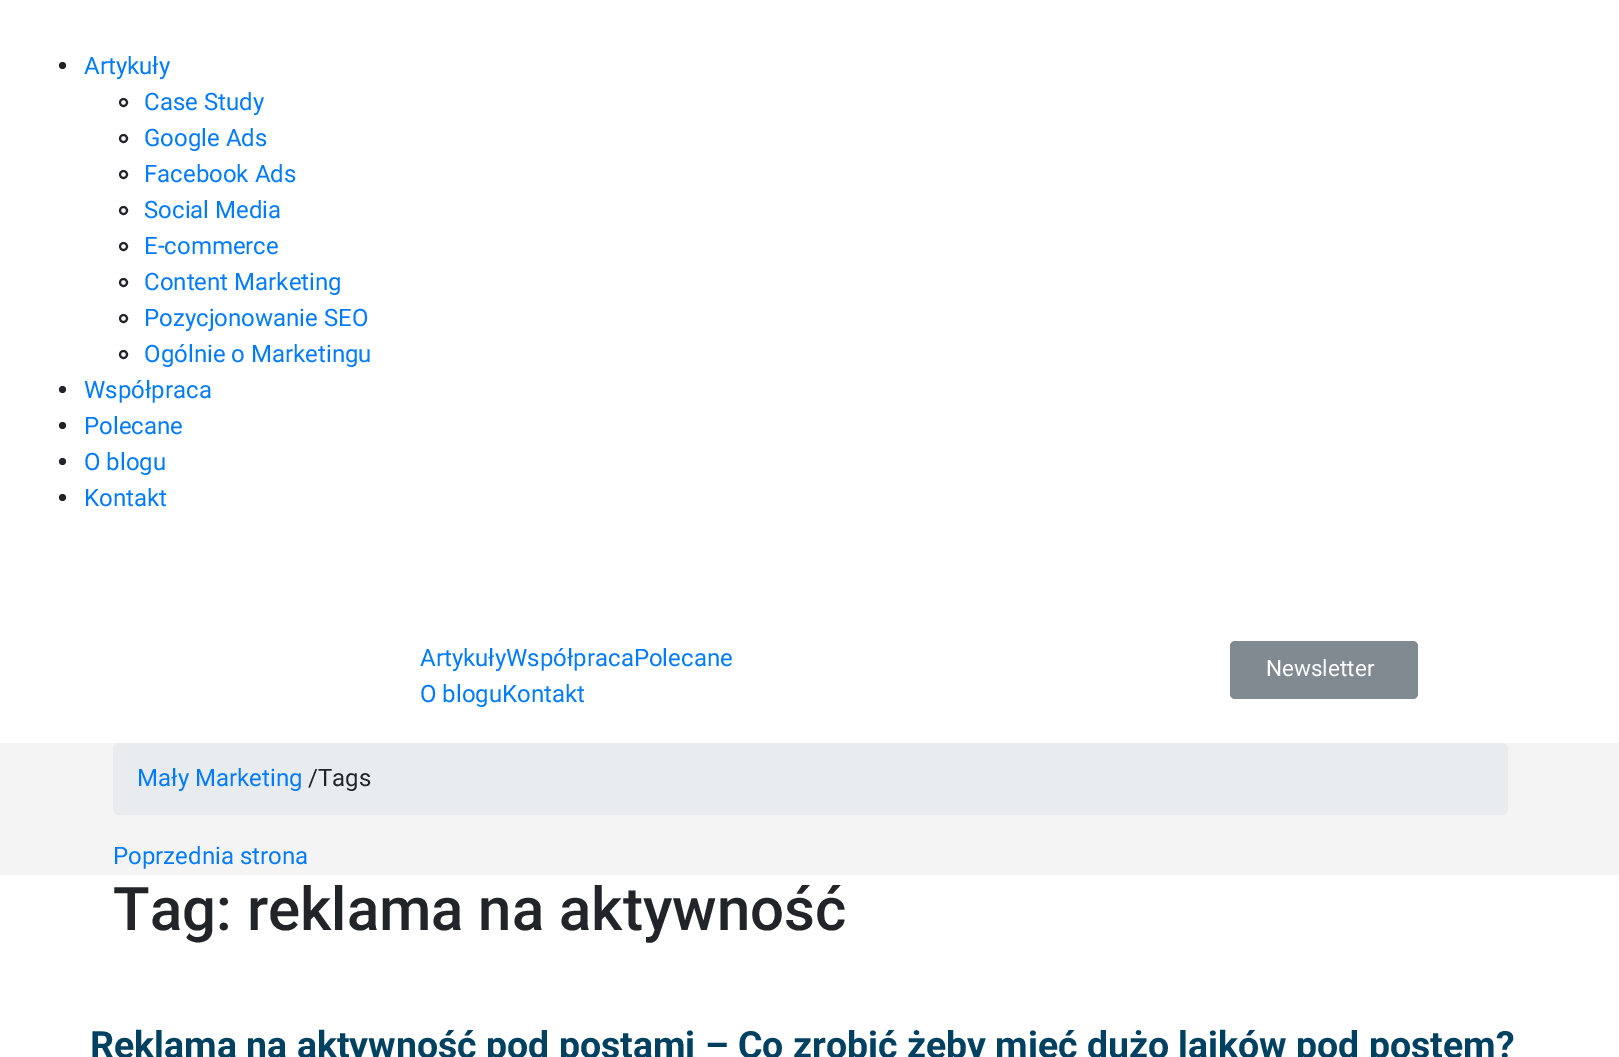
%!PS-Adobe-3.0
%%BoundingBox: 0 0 1619 1057
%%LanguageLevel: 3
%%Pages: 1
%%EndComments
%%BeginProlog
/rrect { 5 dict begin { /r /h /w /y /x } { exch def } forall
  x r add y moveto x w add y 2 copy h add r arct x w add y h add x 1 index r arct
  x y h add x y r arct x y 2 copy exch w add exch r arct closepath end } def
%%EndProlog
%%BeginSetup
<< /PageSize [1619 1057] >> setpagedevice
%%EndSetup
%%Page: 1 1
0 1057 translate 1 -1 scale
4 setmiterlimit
1 setgray
0 0 1619 1057 rectfill
0.129 0.145 0.161 setrgbcolor
newpath 62.5 65.5 3.5 0 360 arc closepath fill
2 setlinewidth
newpath 123.5 102.5 3.5 0 360 arc closepath stroke
newpath 123.5 138.5 3.5 0 360 arc closepath stroke
newpath 123.5 174.5 3.5 0 360 arc closepath stroke
newpath 123.5 210.5 3.5 0 360 arc closepath stroke
newpath 123.5 246.5 3.5 0 360 arc closepath stroke
newpath 123.5 282.5 3.5 0 360 arc closepath stroke
newpath 123.5 318.5 3.5 0 360 arc closepath stroke
newpath 123.5 354.5 3.5 0 360 arc closepath stroke
newpath 62.5 389.5 3.5 0 360 arc closepath fill
newpath 62.5 425.5 3.5 0 360 arc closepath fill
newpath 62.5 461.5 3.5 0 360 arc closepath fill
newpath 62.5 497.5 3.5 0 360 arc closepath fill
0.506 0.541 0.569 setrgbcolor
1230 641 188 58 5 rrect fill
0.957 setgray
0 743 1619 132 rectfill
0.914 0.925 0.937 setrgbcolor
113 743 1395 72 6 rrect fill
/Roboto-Regular [24 0 0 -24 0 0] selectfont
0 0.482 1 setrgbcolor
84 74 moveto (Artykuły) show
144 110 moveto (Case Study) show
144 146 moveto (Google Ads) show
144 182 moveto (Facebook Ads) show
144 218 moveto (Social Media) show
144 254 moveto (E-commerce) show
144 290 moveto (Content Marketing) show
144 326 moveto (Pozycjonowanie SEO) show
144 362 moveto (Ogólnie o Marketingu) show
84 398 moveto (Współpraca) show
84 434 moveto (Polecane) show
84 470 moveto (O blogu) show
84 506 moveto (Kontakt) show
420 666 moveto (Artykuły) show
506 666 moveto (WspółpracaPolecane) show
420 702 moveto (O bloguKontakt) show
/Roboto-Regular [22.5 0 0 -22.5 0 0] selectfont
1 setgray
1266 676 moveto (Newsletter) show
/Roboto-Regular [24 0 0 -24 0 0] selectfont
0 0.482 1 setrgbcolor
137 786 moveto (Mały Marketing) show
0.129 0.145 0.161 setrgbcolor
308 786 moveto (/Tags) show
0 0.482 1 setrgbcolor
113 864 moveto (Poprzednia strona) show
/Roboto-Medium [60 0 0 -60 0 0] selectfont
0.129 0.145 0.161 setrgbcolor
113 930 moveto (Tag: reklama na aktywność) show
/Roboto-Bold [37.5 0 0 -37.5 0 0] selectfont
0 0.255 0.384 setrgbcolor
90 1058 moveto (Reklama na aktywność pod postami – Co zrobić żeby mieć dużo lajków pod postem?) show
showpage
%%EOF
